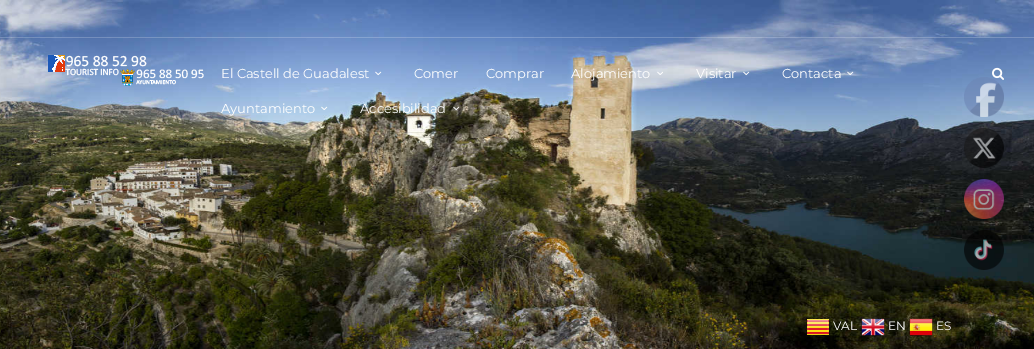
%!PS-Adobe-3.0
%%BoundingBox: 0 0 1034 349
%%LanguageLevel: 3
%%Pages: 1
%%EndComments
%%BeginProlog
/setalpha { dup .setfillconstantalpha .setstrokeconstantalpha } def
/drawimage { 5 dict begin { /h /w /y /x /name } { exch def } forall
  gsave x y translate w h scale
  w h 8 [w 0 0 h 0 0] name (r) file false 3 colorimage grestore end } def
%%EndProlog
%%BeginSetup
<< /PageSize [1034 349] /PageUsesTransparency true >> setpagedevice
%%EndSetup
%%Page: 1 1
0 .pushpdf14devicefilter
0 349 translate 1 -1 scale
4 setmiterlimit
1 setgray
0 0 1034 349 rectfill
(images/1.raw) 0 0 1034 349 drawimage
0.2 setalpha
0 37 1034 1 rectfill
1 setalpha
(images/2.raw) 48 55 156 31 drawimage
(images/3.raw) 375 71 7 5 drawimage
(images/4.raw) 657 71 6 4 drawimage
(images/5.raw) 743 71 7 5 drawimage
(images/6.raw) 847 71 7 5 drawimage
(images/7.raw) 321 106 7 4 drawimage
(images/8.raw) 453 106 7 5 drawimage
(images/10.raw) 964 77 40 40 drawimage
(images/9.raw) 992 67 12 13 drawimage
(images/11.raw) 964 128 40 40 drawimage
(images/12.raw) 964 179 40 40 drawimage
(images/13.raw) 964 230 40 40 drawimage
(images/14.raw) 806 318 23 18 drawimage
(images/15.raw) 861 318 24 18 drawimage
(images/16.raw) 909 318 24 19 drawimage
/Montserrat-Regular [13 0 0 -13 0 0] selectfont
221 78 moveto (El Castell de Guadalest) show
414 78 moveto (Comer) show
486 78 moveto (Comprar) show
571 78 moveto (Alojamiento) show
696 78 moveto (Visitar) show
782 78 moveto (Contacta) show
221 113 moveto (Ayuntamiento) show
360 113 moveto (Accesibilidad) show
/Montserrat-Regular [12 0 0 -12 0 0] selectfont
833 330 moveto (VAL) show
888 330 moveto (EN) show
936 330 moveto (ES) show
.poppdf14devicefilter showpage
%%EOF
